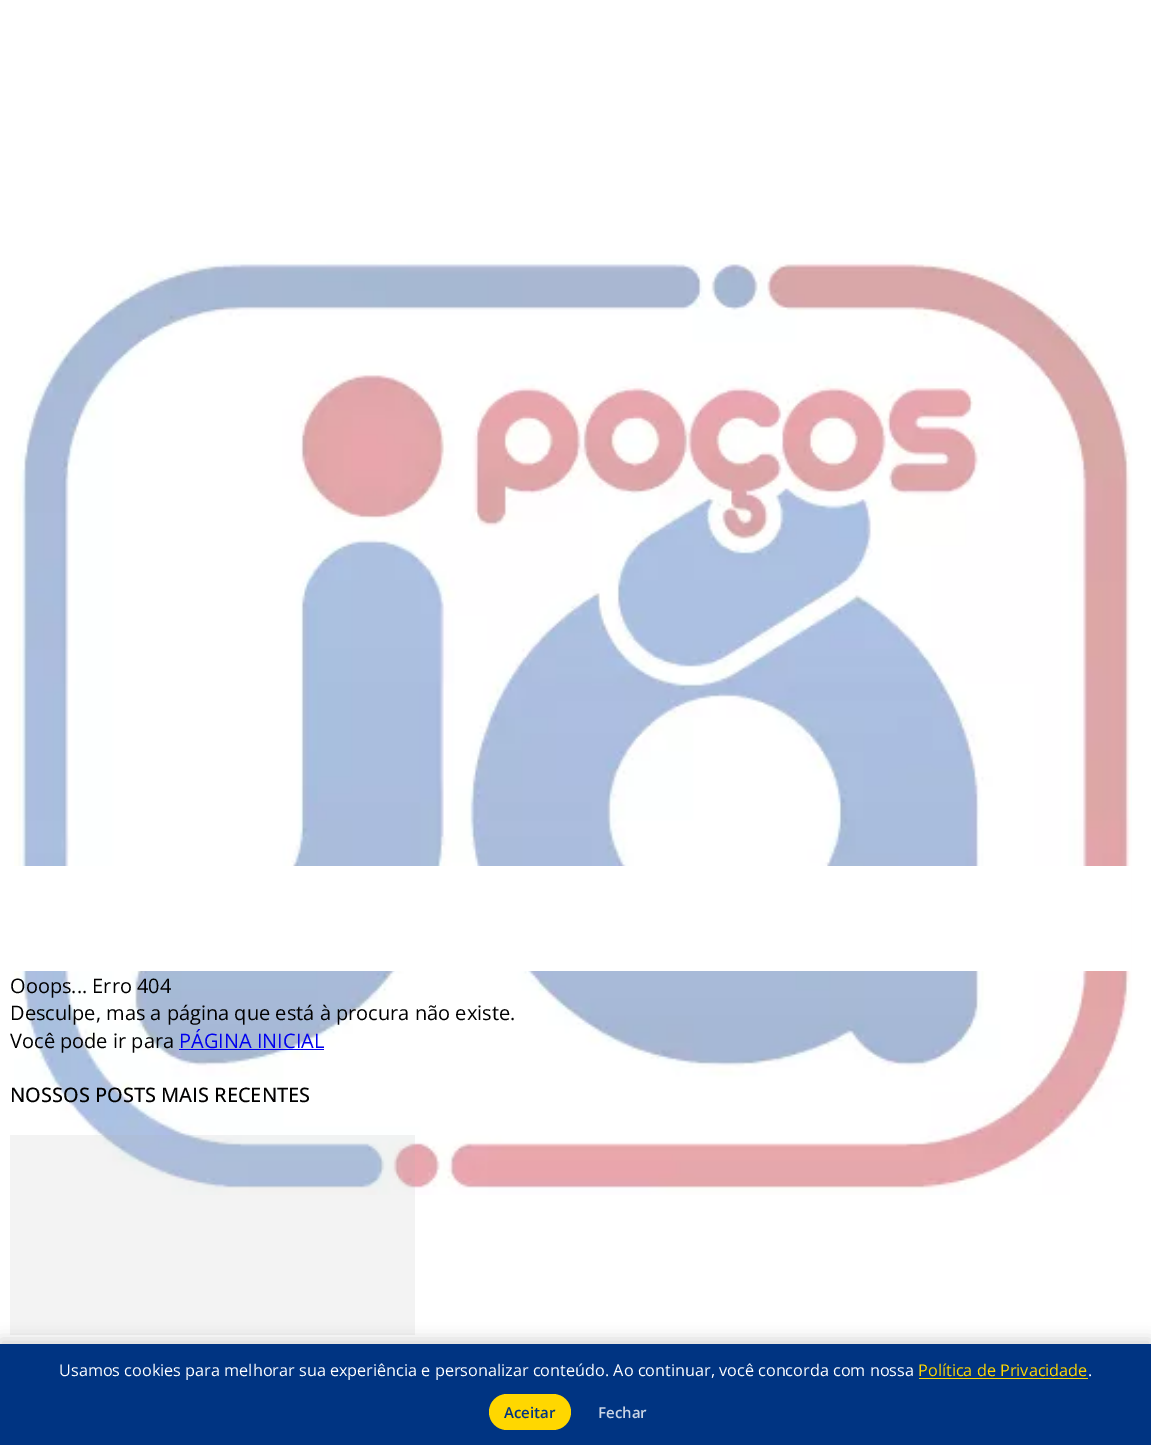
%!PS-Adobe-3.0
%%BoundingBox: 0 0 1151 1445
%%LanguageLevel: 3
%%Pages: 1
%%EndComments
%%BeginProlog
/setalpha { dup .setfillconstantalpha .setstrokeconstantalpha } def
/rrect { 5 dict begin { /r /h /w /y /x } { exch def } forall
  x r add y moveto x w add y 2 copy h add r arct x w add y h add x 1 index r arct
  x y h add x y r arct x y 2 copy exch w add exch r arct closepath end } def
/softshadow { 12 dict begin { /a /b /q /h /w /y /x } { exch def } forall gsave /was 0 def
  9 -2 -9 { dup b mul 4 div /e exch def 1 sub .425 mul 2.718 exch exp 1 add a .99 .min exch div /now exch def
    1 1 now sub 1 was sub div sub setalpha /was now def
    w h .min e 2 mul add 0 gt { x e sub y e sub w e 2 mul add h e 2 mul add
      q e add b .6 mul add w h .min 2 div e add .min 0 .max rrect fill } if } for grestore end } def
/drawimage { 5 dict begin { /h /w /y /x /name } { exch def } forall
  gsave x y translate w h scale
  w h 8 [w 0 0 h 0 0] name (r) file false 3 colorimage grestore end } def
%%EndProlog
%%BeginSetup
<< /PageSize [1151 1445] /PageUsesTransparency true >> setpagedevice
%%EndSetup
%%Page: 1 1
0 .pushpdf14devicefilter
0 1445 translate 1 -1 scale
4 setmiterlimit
1 setgray
0 0 1151 1445 rectfill
(images/1.raw) 14 259 1118 936 drawimage
14 866 1117 105 rectfill
0.15 setalpha
0.682 setgray
10 1135 405 200 rectfill
1 setalpha
0 0 0.933 setrgbcolor
179 1049 145 1 rectfill
0 setgray
0 1339 1151 101 0 7.5 0.15 softshadow
0 0.204 0.51 setrgbcolor
0 1344 1151 101 rectfill
1 0.843 0 setrgbcolor
919 1378 169 1 rectfill
489 1394 82 36 18 rrect fill
/OpenSans-Regular [20 0 0 -20 0 0] selectfont
0 setgray
10 993 moveto (Ooops... Erro 404) show
10 1020 moveto (Desculpe, mas a página que está à procura não existe.) show
10 1048 moveto (Você pode ir para) show
0 0 0.933 setrgbcolor
179 1048 moveto (PÁGINA INICIAL) show
/OpenSans-Medium [20 0 0 -20 0 0] selectfont
0 setgray
10 1102 moveto (NOSSOS POSTS MAIS RECENTES) show
/OpenSans-Regular [16.25 0 0 -16.25 0 0] selectfont
1 setgray
59 1376 moveto (Usamos cookies para melhorar sua experiência e personalizar conteúdo. Ao continuar, você concorda com nossa) show
1 0.843 0 setrgbcolor
918 1376 moveto (Política de Privacidade) show
1 setgray
1088 1376 moveto (.) show
/OpenSans-SemiBold [15 0 0 -15 0 0] selectfont
0 0.204 0.51 setrgbcolor
504 1418 moveto (Aceitar) show
0.8 0.839 0.902 setrgbcolor
598 1418 moveto (Fechar) show
.poppdf14devicefilter showpage
%%EOF
